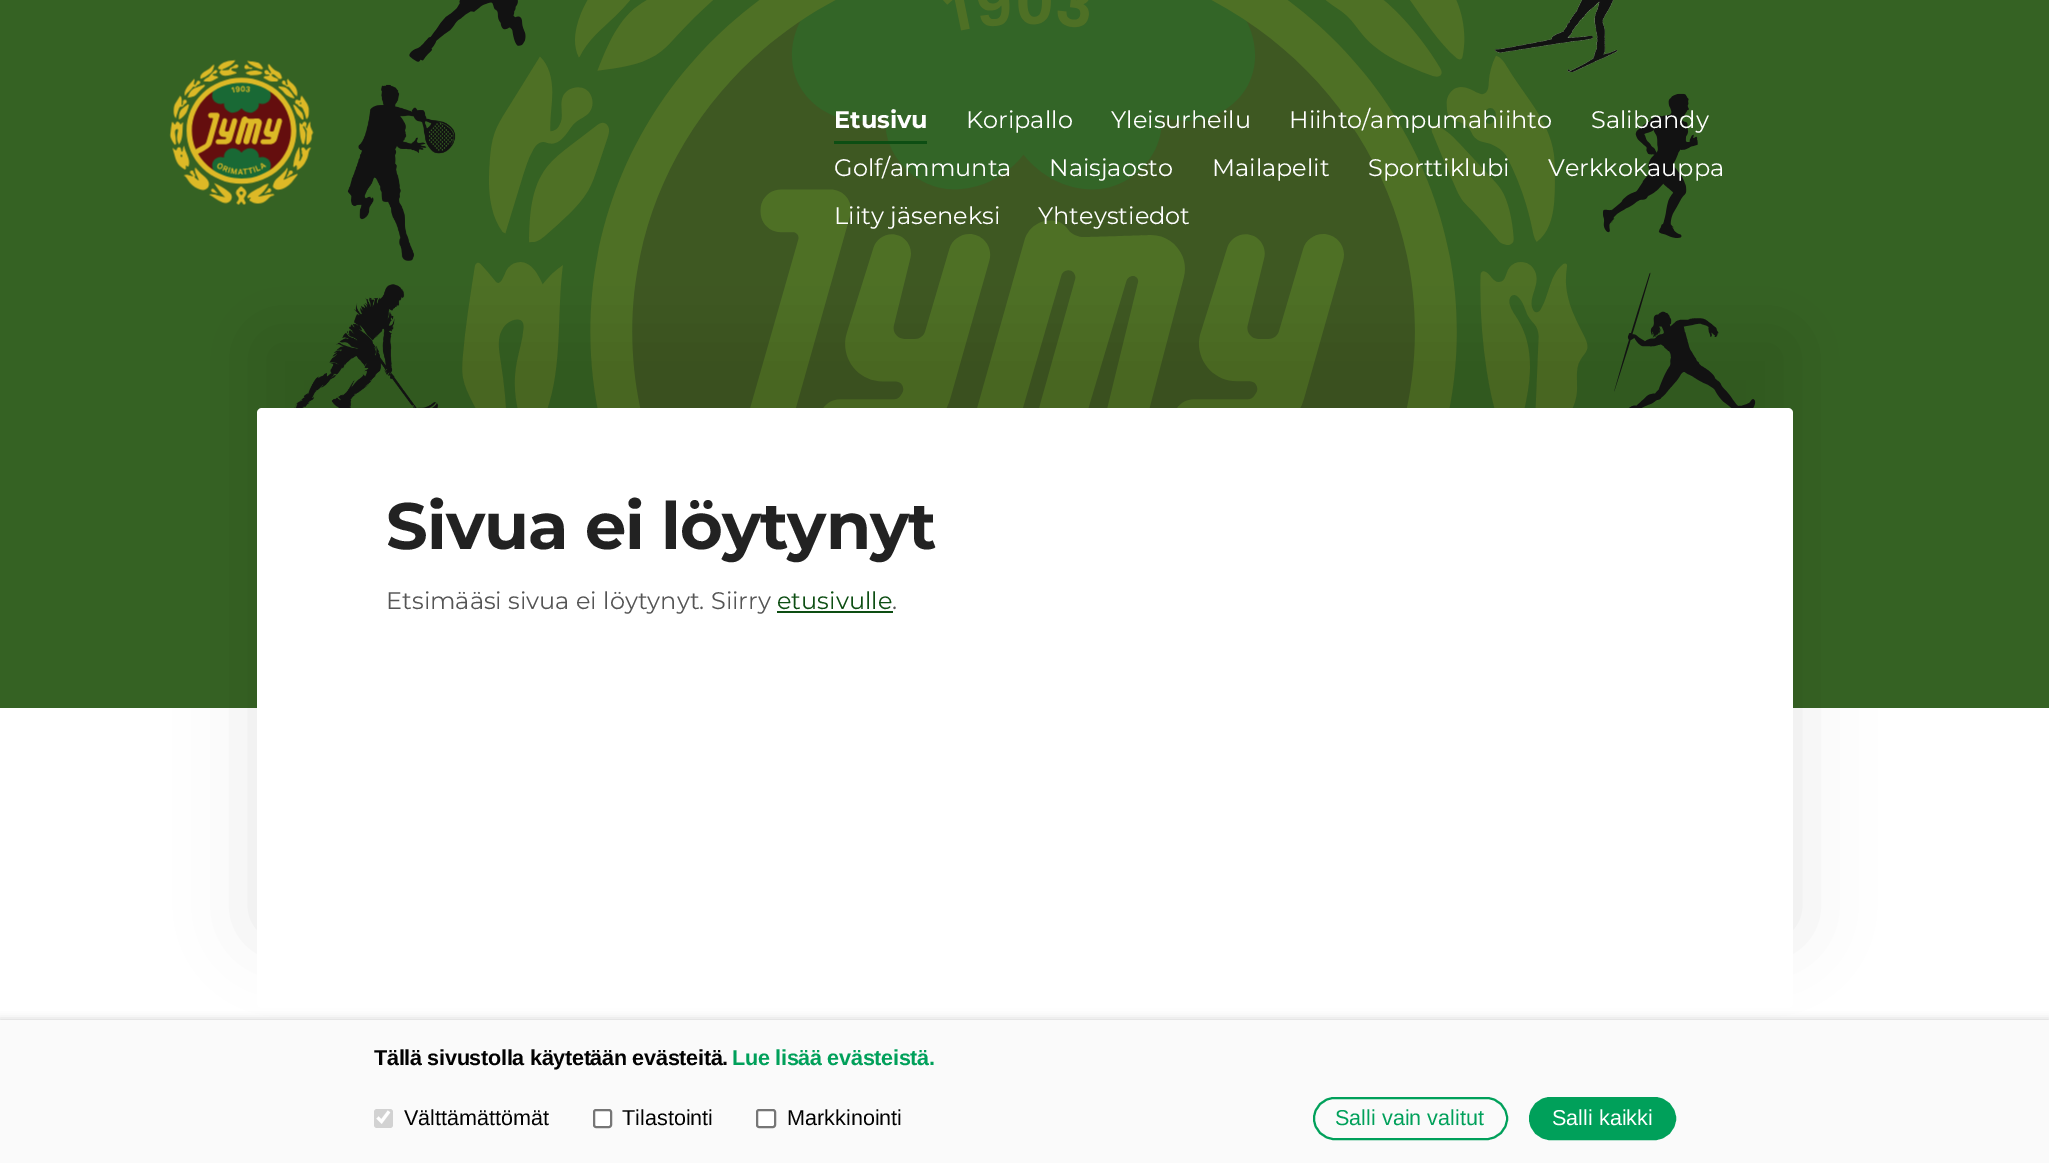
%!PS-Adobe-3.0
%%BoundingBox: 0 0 2049 1163
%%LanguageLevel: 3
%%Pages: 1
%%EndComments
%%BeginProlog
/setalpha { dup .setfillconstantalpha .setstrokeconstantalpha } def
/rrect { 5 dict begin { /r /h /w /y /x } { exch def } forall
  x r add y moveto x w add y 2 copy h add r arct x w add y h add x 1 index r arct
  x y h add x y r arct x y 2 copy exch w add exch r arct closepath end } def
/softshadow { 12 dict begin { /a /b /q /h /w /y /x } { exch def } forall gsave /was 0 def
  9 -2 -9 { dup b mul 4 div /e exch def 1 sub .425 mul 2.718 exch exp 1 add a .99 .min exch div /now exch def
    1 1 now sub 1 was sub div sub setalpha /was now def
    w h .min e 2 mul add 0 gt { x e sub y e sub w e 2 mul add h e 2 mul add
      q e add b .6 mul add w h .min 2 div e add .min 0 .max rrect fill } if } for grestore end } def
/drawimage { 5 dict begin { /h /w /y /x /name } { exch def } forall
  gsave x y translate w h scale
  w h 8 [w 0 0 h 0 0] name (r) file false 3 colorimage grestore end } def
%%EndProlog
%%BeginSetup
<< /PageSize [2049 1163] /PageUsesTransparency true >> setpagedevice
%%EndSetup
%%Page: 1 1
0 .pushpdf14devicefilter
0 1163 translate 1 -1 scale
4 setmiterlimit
1 setgray
0 0 2049 1163 rectfill
(images/1.raw) 0 0 2049 708 drawimage
(images/2.raw) 169 59 145 146 drawimage
0.051 0.306 0.075 setrgbcolor
834 141 93 3 rectfill
0 setgray
257 333 1536 600 5 37.5 0.1 softshadow
1 setgray
257 408 1536 600 5 rrect fill
0.051 0.306 0.075 setrgbcolor
777 611 116 2 rectfill
0 setgray
0 1020 2049 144 0 4 0.2 softshadow
0.98 setgray
0 1020 2049 143 rectfill
0.824 setgray
374 1109 19 19 3 rrect fill
1 setgray
3.1 setlinewidth
newpath 377.5 1117.5 moveto 381.5 1121.5 lineto 389 1111.5 lineto stroke
594 1110 17 17 2 rrect gsave fill grestore
0.463 setgray
2 setlinewidth
stroke
1 setgray
757 1110 18 17 2 rrect gsave fill grestore
0.463 setgray
stroke
0 0.627 0.353 setrgbcolor
1314 1098 193 41 20.5 rrect stroke
1530 1098 145 41 20.5 rrect gsave fill grestore
stroke
/Montserrat-Thin [24 0 0 -24 0 0] selectfont
1 setgray
834 128 moveto (Etusivu) show
/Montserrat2-Thin [24 0 0 -24 0 0] selectfont
966 128 moveto (Koripallo) show
1111 128 moveto (Yleisurheilu) show
1289 128 moveto (Hiihto/ampumahiihto) show
1591 128 moveto (Salibandy) show
834 176 moveto (Golf/ammunta) show
1049 176 moveto (Naisjaosto) show
1212 176 moveto (Mailapelit) show
1368 176 moveto (Sporttiklubi) show
1548 176 moveto (Verkkokauppa) show
834 224 moveto (Liity jäseneksi) show
1038 224 moveto (Yhteystiedot) show
/Montserrat-Thin [65.5 0 0 -65.5 0 0] selectfont
0.133 setgray
386 549 moveto -1 0 (Sivua ei löytynyt) ashow
/Montserrat2-Thin [24 0 0 -24 0 0] selectfont
0.333 setgray
386 609 moveto (Etsimääsi sivua ei löytynyt. Siirry) show
0.051 0.306 0.075 setrgbcolor
777 609 moveto (etusivulle) show
0.333 setgray
892 609 moveto (.) show
/LiberationSans-Bold [21.6 0 0 -21.6 0 0] selectfont
0.008 setgray
374 1065 moveto -0.3 0 (Tällä sivustolla käytetään evästeitä.) ashow
0 0.627 0.353 setrgbcolor
732 1065 moveto -0.3 0 (Lue lisää evästeistä.) ashow
/LiberationSans-Regular [21.6 0 0 -21.6 0 0] selectfont
0.008 setgray
404 1125 moveto (Välttämättömät) show
622 1125 moveto (Tilastointi) show
787 1125 moveto (Markkinointi) show
0 0.627 0.353 setrgbcolor
1335 1125 moveto (Salli vain valitut) show
1 setgray
1552 1125 moveto (Salli kaikki) show
.poppdf14devicefilter showpage
%%EOF
